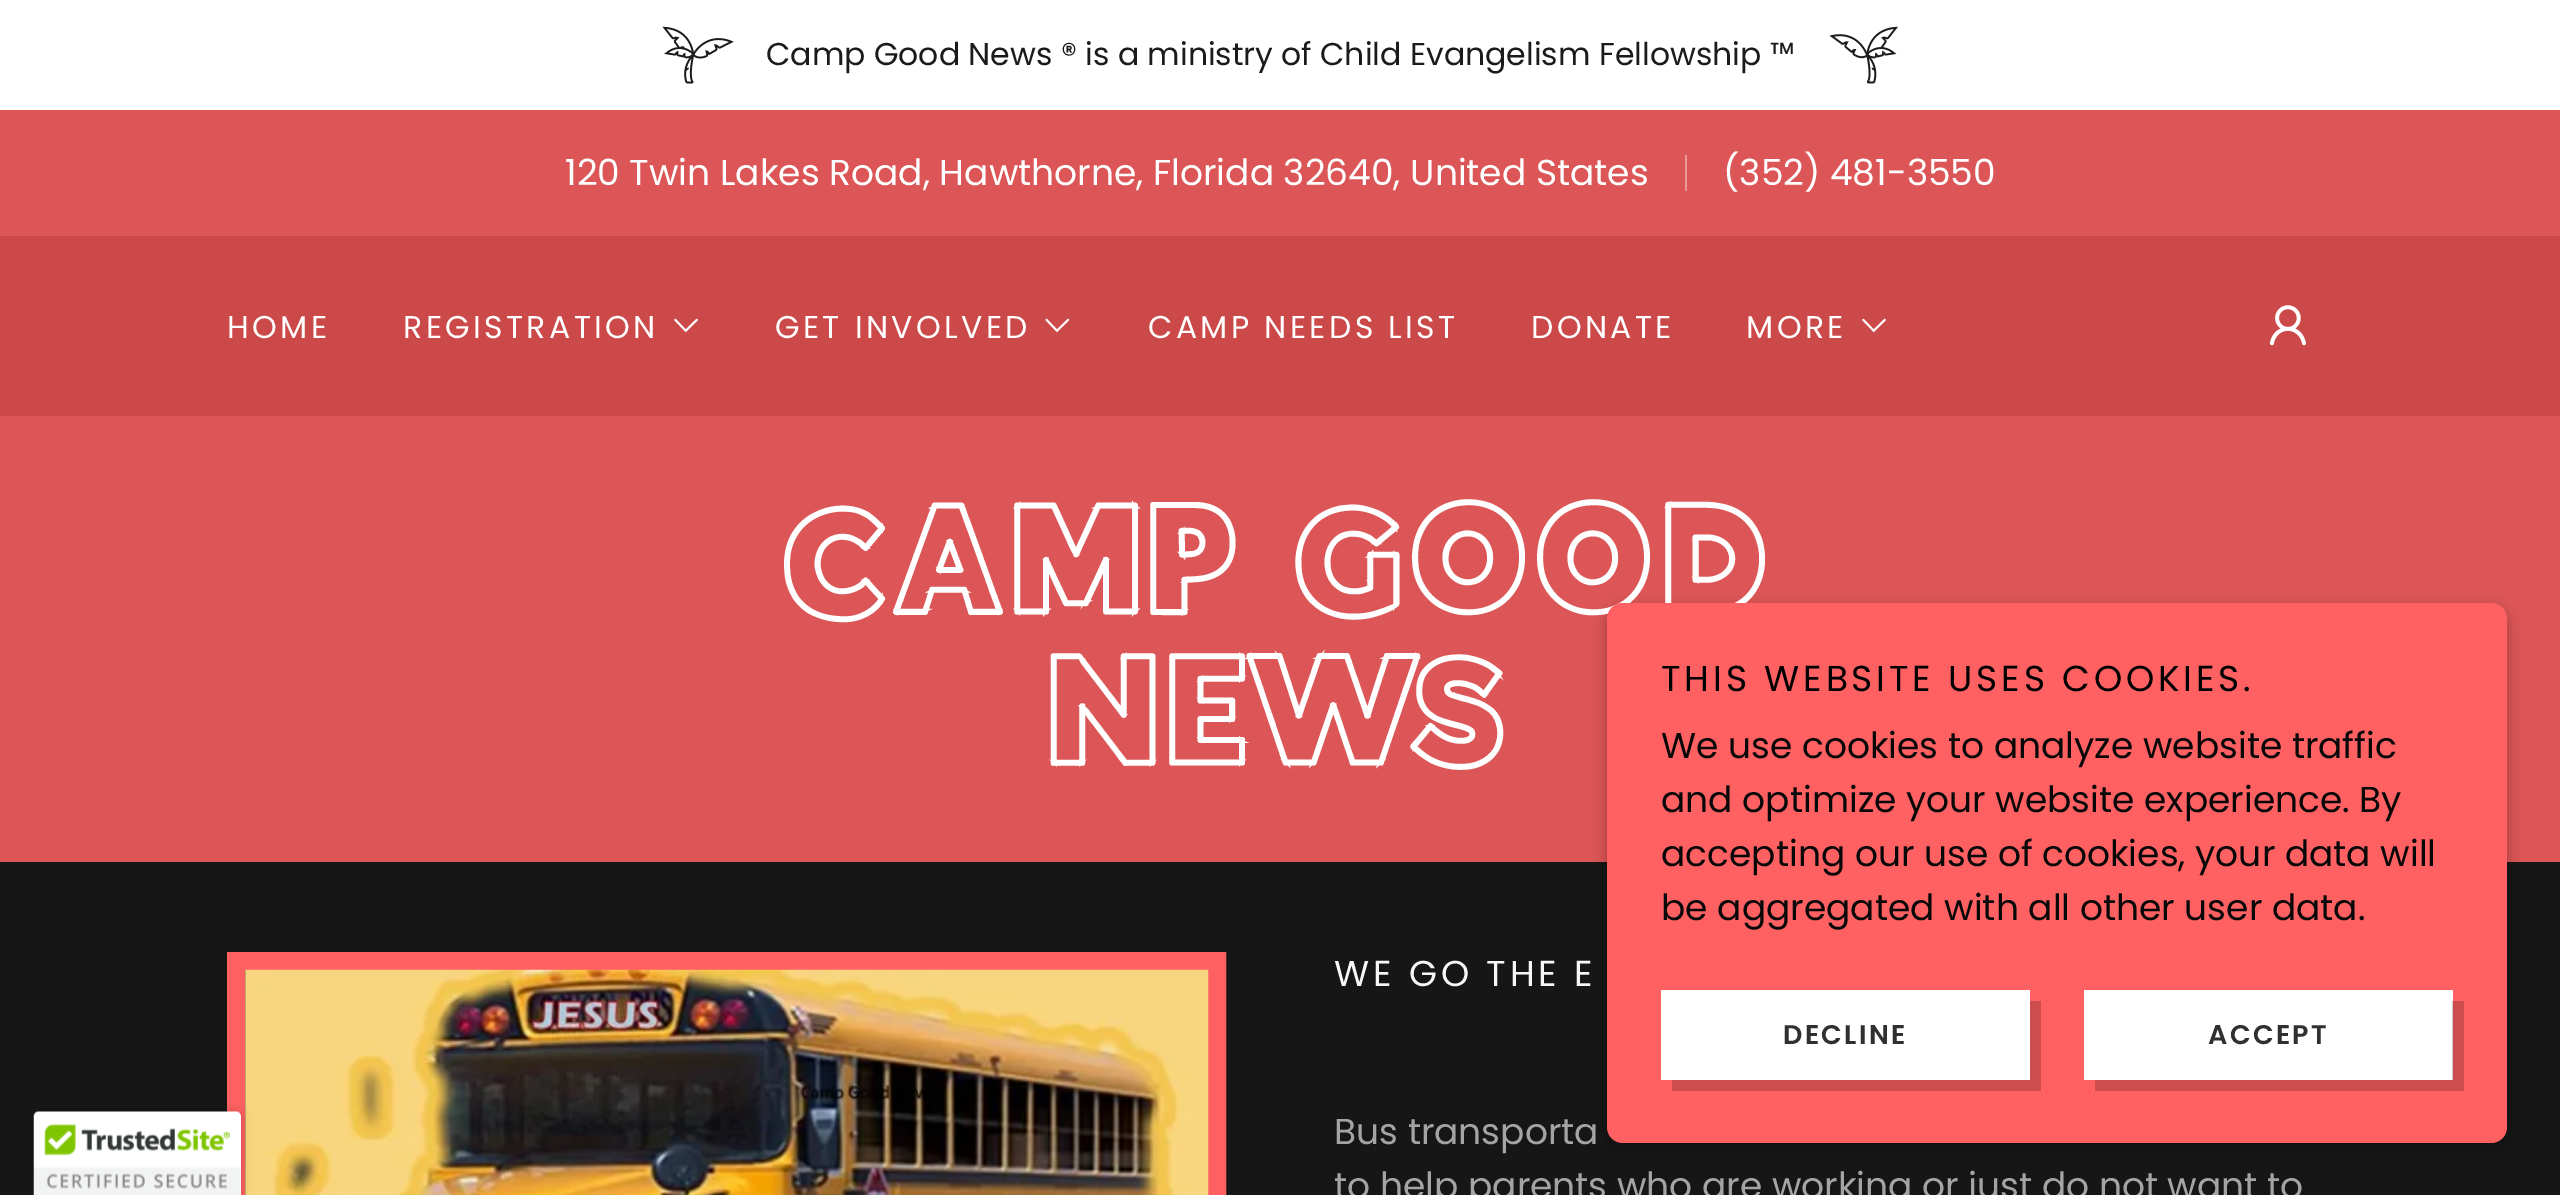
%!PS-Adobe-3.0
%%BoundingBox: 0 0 2560 1195
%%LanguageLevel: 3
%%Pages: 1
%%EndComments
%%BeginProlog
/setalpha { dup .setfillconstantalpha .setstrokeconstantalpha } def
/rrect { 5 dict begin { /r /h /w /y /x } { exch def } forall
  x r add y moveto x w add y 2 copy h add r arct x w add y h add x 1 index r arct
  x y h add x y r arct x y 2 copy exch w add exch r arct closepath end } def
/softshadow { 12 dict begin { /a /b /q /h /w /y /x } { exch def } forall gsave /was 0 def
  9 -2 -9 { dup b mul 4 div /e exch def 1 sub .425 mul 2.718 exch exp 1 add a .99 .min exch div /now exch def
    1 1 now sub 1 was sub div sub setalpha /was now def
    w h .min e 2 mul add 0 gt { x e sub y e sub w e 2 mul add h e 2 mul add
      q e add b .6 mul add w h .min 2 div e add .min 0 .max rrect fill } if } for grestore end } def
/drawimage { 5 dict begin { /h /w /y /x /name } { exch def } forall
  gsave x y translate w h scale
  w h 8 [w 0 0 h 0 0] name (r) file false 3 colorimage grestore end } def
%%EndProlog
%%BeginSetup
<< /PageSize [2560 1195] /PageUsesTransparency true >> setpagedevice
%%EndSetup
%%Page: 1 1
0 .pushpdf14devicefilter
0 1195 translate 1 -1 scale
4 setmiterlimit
0.863 0.337 0.341 setrgbcolor
0 0 2560 1195 rectfill
0.086 setgray
0 862 2560 333 rectfill
1 0.38 0.388 setrgbcolor
18 setlinewidth
236 961 981 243 rectstroke
(images/7.raw) 245 969 964 226 drawimage
0 setgray
34 1112 207 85 5 5.5 0.2 softshadow
(images/1.raw) 33 1111 208 84 drawimage
1 setgray
0 0 2560 110 rectfill
(images/2.raw) 662 26 72 58 drawimage
(images/3.raw) 1829 26 69 58 drawimage
0.918 0.604 0.604 setrgbcolor
1685 155 2 36 rectfill
0.8 0.286 0.29 setrgbcolor
0 236 2560 180 rectfill
(images/4.raw) 674 318 24 15 drawimage
(images/5.raw) 1045 318 25 15 drawimage
(images/4.raw) 1862 318 24 15 drawimage
(images/6.raw) 2269 305 37 41 drawimage
0 setgray
1607 608 900 540 16 7 0.3 softshadow
/Poppins-Regular [31.5 0 0 -31.5 0 0] selectfont
0.106 setgray
766 65 moveto (Camp Good News ® is a ministry of Child Evangelism Fellowship ™) show
/Poppins-Regular [36 0 0 -36 0 0] selectfont
1 setgray
565 185 moveto (120 Twin Lakes Road, Hawthorne, Florida 32640, United States) show
1723 185 moveto (\(352\) 481-3550) show
/Poppins-Regular [31.5 0 0 -31.5 0 0] selectfont
227 338 moveto 3.4 0 (HOME) ashow
403 338 moveto 3.4 0 (REGISTRATION) ashow
775 338 moveto 3.4 0 (GET INVOLVED) ashow
1148 338 moveto 3.4 0 (CAMP NEEDS LIST) ashow
1531 338 moveto 3.4 0 (DONATE) ashow
1746 338 moveto 3.4 0 (MORE) ashow
/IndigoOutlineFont-Bold [126 0 0 -126 0 0] selectfont
784 614 moveto 13.5 0 (CAMP GOOD) ashow
1049 765 moveto 13.5 0 (NEWS) ashow
1 0.38 0.388 setrgbcolor
1607 603 900 540 16 rrect fill
/Poppins-Regular [36 0 0 -36 0 0] selectfont
0 setgray
1661 691 moveto 3.85 0 (THIS WEBSITE USES COOKIES.) ashow
0.035 0.031 0.031 setrgbcolor
1661 758 moveto (We use cookies to analyze website traffic) show
1661 812 moveto (and optimize your website experience. By) show
1661 866 moveto (accepting our use of cookies, your data will) show
1661 920 moveto (be aggregated with all other user data.) show
1 setgray
1661 990 369 90 rectfill
0.8 0.306 0.31 setrgbcolor
newpath 1672 1080 moveto 1672 1091 lineto 2041 1091 lineto 2041 1001 lineto 2030 1001 lineto 2030 1080 lineto closepath fill
/Poppins-SemiBold [27 0 0 -27 0 0] selectfont
0.188 setgray
1783 1044 moveto 2.25 0 (DECLINE) ashow
1 setgray
2084 990 369 90 rectfill
0.2 setalpha
0 setgray
newpath 2095 1080 moveto 2095 1091 lineto 2464 1091 lineto 2464 1001 lineto 2452 1001 lineto 2452 1080 lineto closepath fill
1 setalpha
0.188 setgray
2208 1044 moveto 2.25 0 (ACCEPT) ashow
/Poppins-Regular [36 0 0 -36 0 0] selectfont
0.969 setgray
1334 986 moveto 3.85 0 (WE GO THE E) ashow
0.643 setgray
1334 1144 moveto (Bus transporta) show
1334 1198 moveto (to help parents who are working or just do not want to) show
.poppdf14devicefilter showpage
%%EOF
